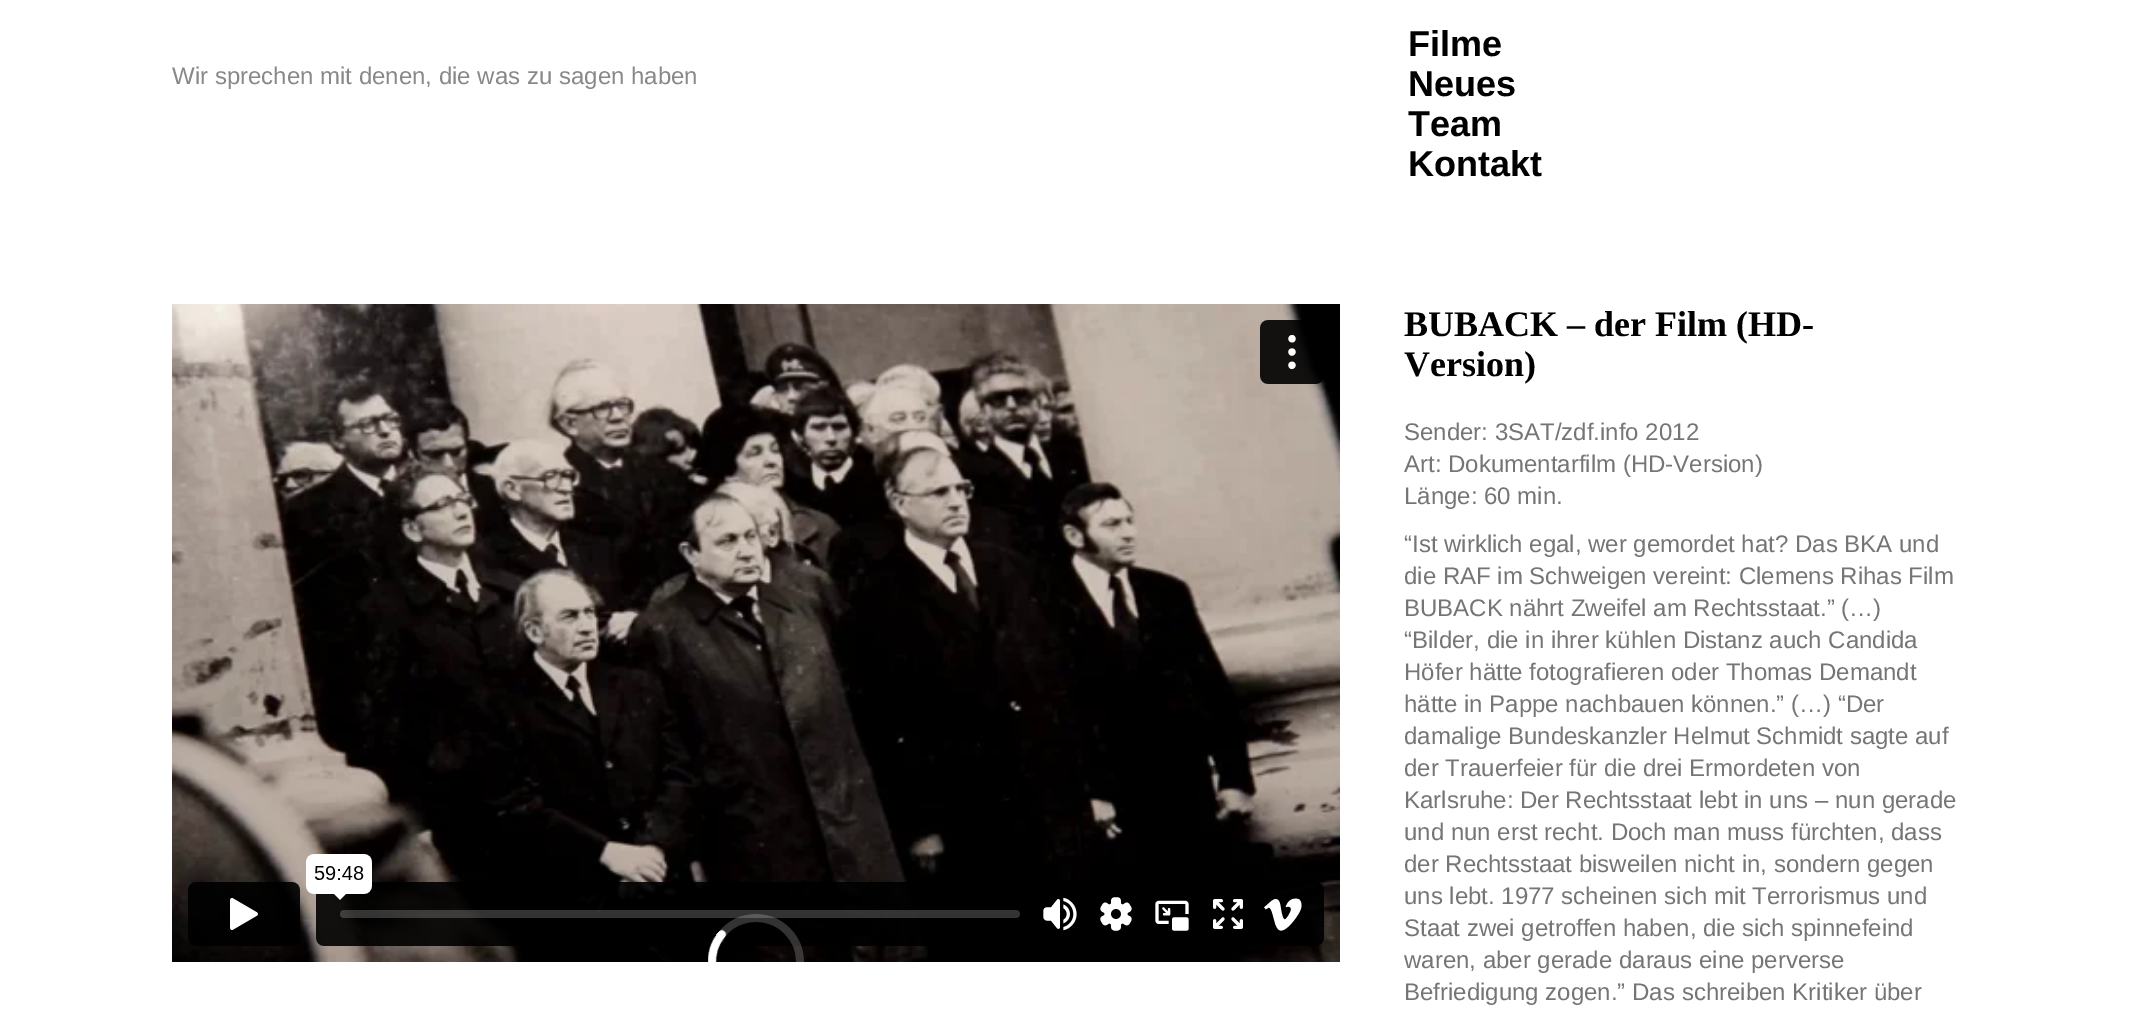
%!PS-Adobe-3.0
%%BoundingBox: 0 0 2136 1021
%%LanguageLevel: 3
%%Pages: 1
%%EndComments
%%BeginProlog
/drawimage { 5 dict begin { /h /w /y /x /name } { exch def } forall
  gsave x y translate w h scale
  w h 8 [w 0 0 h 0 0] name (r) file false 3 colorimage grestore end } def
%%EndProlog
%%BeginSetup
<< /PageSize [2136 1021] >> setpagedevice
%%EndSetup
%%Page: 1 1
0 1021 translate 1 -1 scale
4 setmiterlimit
1 setgray
0 0 2136 1021 rectfill
(images/1.raw) 172 304 1168 658 drawimage
/LiberationSans-Regular [24 0 0 -24 0 0] selectfont
0.533 setgray
172 84 moveto (Wir sprechen mit denen, die was zu sagen haben) show
/LiberationSans-Bold [36 0 0 -36 0 0] selectfont
0 setgray
1408 56 moveto (Filme) show
1408 96 moveto (Neues) show
1408 136 moveto (Team) show
1408 176 moveto (Kontakt) show
/LiberationSerif-Bold [36 0 0 -36 0 0] selectfont
1404 336 moveto (BUBACK – der Film \(HD-) show
1404 376 moveto (Version\)) show
/LiberationSans-Regular [24 0 0 -24 0 0] selectfont
0.459 setgray
1404 440 moveto (Sender: 3SAT/zdf.info 2012) show
1404 472 moveto (Art: Dokumentarfilm \(HD-Version\)) show
1404 504 moveto (Länge: 60 min.) show
1404 552 moveto (“Ist wirklich egal, wer gemordet hat? Das BKA und) show
1404 584 moveto (die RAF im Schweigen vereint: Clemens Rihas Film) show
1404 616 moveto (BUBACK nährt Zweifel am Rechtsstaat.” \(…\)) show
1404 648 moveto (“Bilder, die in ihrer kühlen Distanz auch Candida) show
1404 680 moveto (Höfer hätte fotografieren oder Thomas Demandt) show
1404 712 moveto (hätte in Pappe nachbauen können.” \(…\) “Der) show
1404 744 moveto (damalige Bundeskanzler Helmut Schmidt sagte auf) show
1404 776 moveto (der Trauerfeier für die drei Ermordeten von) show
1404 808 moveto (Karlsruhe: Der Rechtsstaat lebt in uns – nun gerade) show
1404 840 moveto (und nun erst recht. Doch man muss fürchten, dass) show
1404 872 moveto (der Rechtsstaat bisweilen nicht in, sondern gegen) show
1404 904 moveto (uns lebt. 1977 scheinen sich mit Terrorismus und) show
1404 936 moveto (Staat zwei getroffen haben, die sich spinnefeind) show
1404 968 moveto (waren, aber gerade daraus eine perverse) show
1404 1000 moveto (Befriedigung zogen.” Das schreiben Kritiker über) show
showpage
%%EOF
